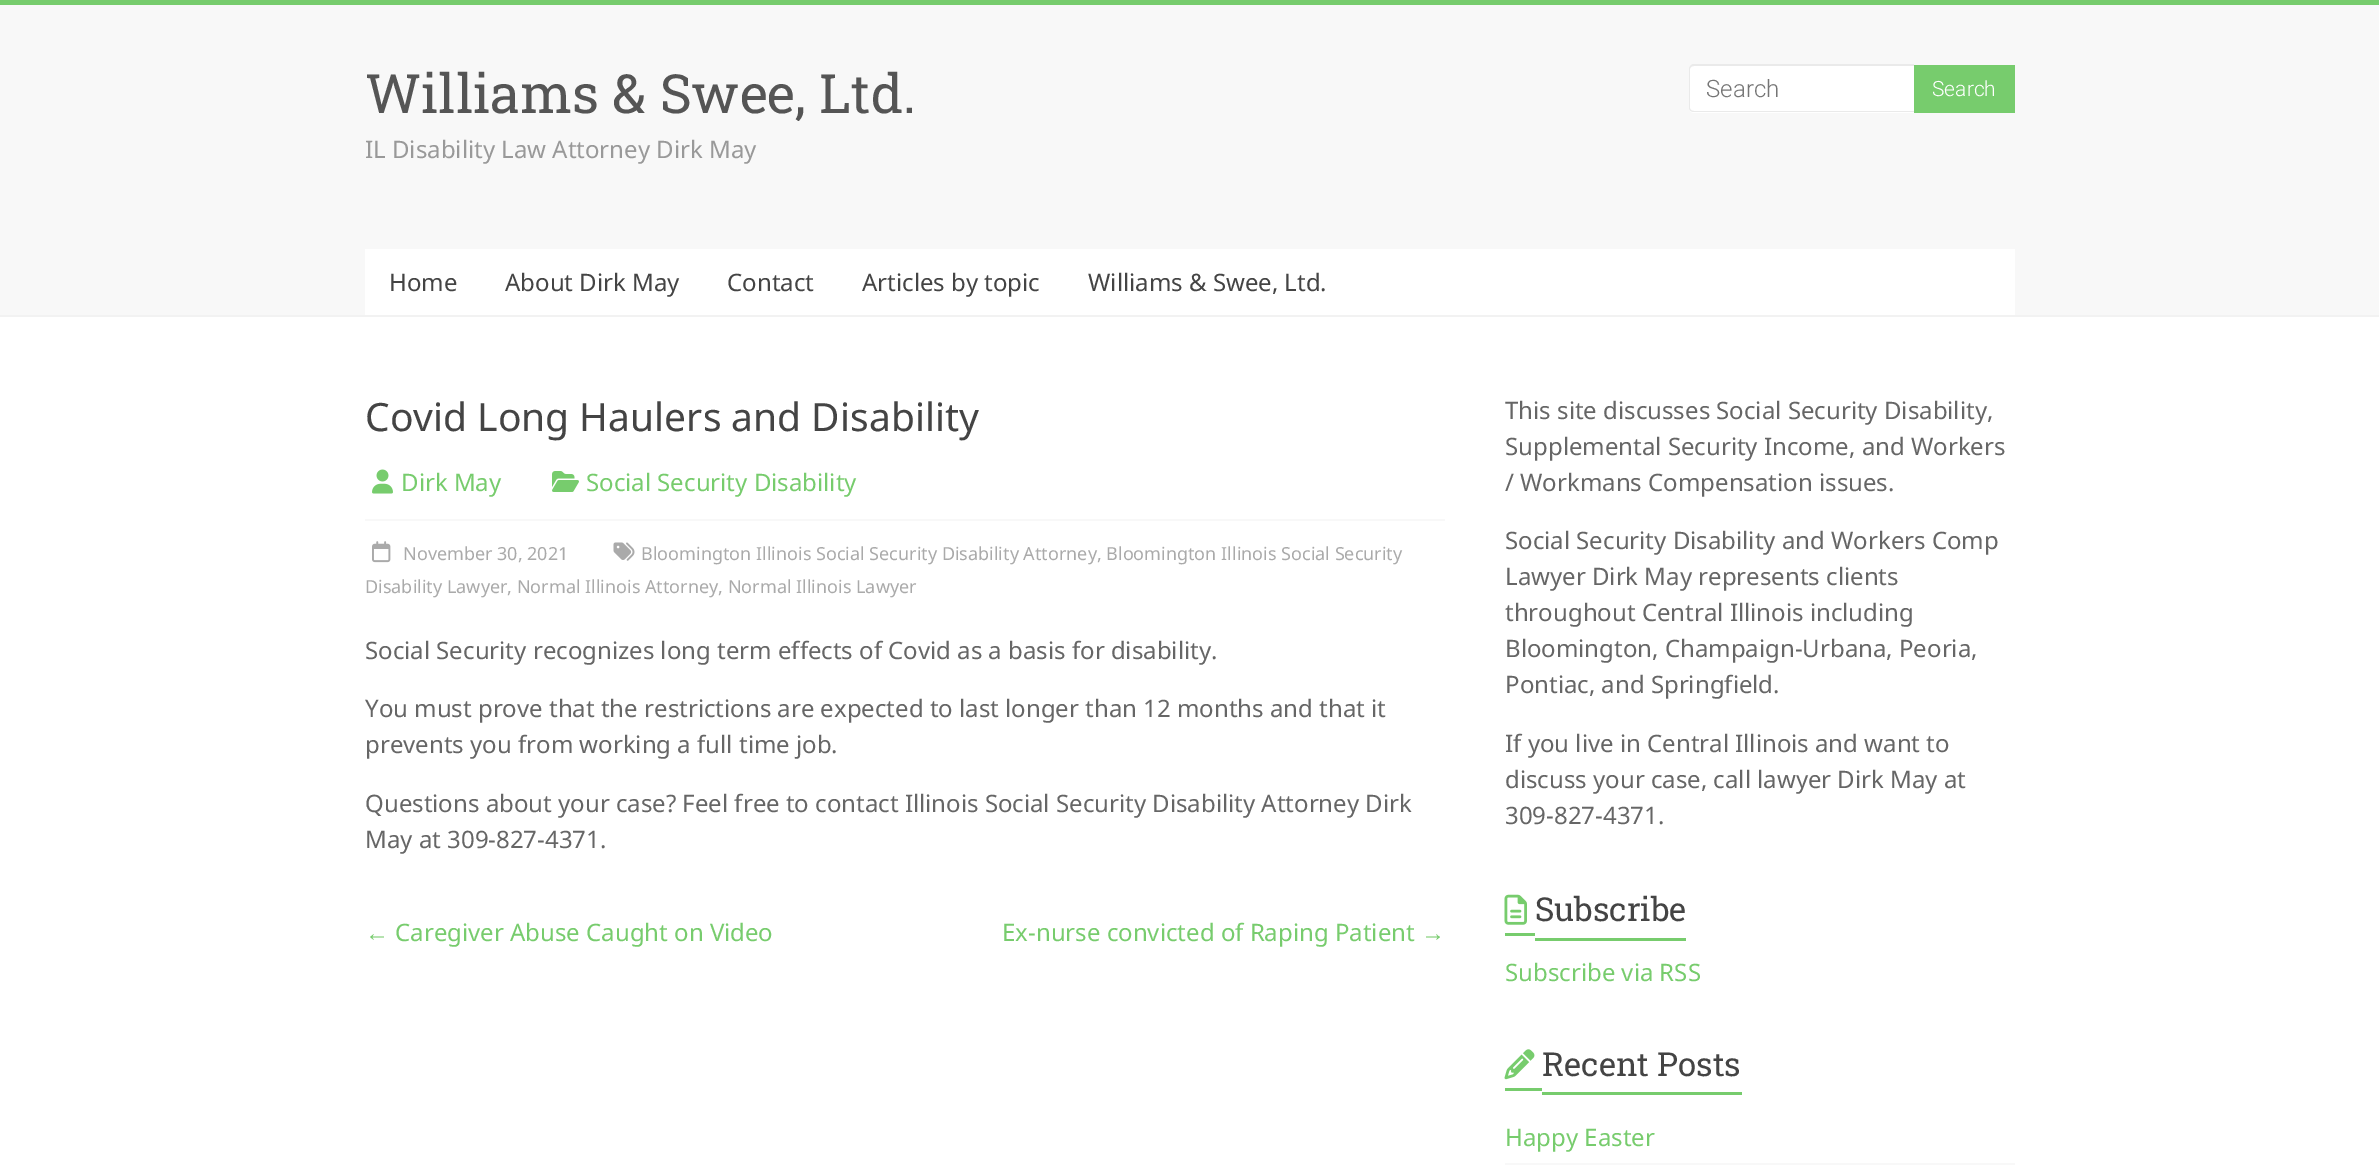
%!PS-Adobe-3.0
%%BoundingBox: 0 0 2379 1175
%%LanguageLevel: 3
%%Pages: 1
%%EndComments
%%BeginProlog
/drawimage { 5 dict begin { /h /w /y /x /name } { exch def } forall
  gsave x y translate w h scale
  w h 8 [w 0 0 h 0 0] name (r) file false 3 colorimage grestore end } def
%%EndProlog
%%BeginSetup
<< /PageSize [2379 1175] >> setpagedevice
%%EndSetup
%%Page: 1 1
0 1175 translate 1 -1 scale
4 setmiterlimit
1 setgray
0 0 2379 1175 rectfill
0.467 0.8 0.427 setrgbcolor
0 0 2379 5 rectfill
0.973 setgray
0 5 2379 310 rectfill
0.949 setgray
0 315 2379 2 rectfill
1 setgray
newpath 1694 65 moveto 1914 65 lineto 1914 113 lineto 1694 113 lineto 1691 113 1689 111 1689 108 curveto 1689 70 lineto 1689 67 1691 65 1694 65 curveto closepath fill
0.918 setgray
newpath 1694 64 moveto 1914 64 lineto 1914 112 lineto 1694 112 lineto 1691 112 1689 110 1689 108 curveto 1689 69 lineto 1689 67 1691 64 1694 64 curveto closepath 1694 66 moveto 1914 66 lineto 1914 111 lineto 1694 111 lineto 1692 111 1690 110 1690 108 curveto 1690 69 lineto 1690 67 1692 66 1694 66 curveto closepath eofill
0.467 0.8 0.427 setrgbcolor
1914 65 101 48 rectfill
1 setgray
365 249 1650 66 rectfill
(images/1.raw) 372 469 21 25 drawimage
(images/2.raw) 552 471 27 21 drawimage
0.973 setgray
365 519 1080 2 rectfill
(images/3.raw) 613 542 22 19 drawimage
(images/4.raw) 372 541 19 22 drawimage
(images/5.raw) 1504 894 23 31 drawimage
0.467 0.8 0.427 setrgbcolor
1505 933 30 3 rectfill
1535 938 151 3 rectfill
(images/6.raw) 1504 1049 31 31 drawimage
1505 1088 37 3 rectfill
1542 1092 200 3 rectfill
0.973 setgray
1505 1163 510 2 rectfill
/RobotoSlab-Regular [54 0 0 -54 0 0] selectfont
0.333 setgray
365 113 moveto (Williams & Swee, Ltd.) show
/NotoSans-Regular [24 0 0 -24 0 0] selectfont
0.6 setgray
365 158 moveto (IL Disability Law Attorney Dirk May) show
/Roboto-Light [24 0 0 -24 0 0] selectfont
0.459 setgray
1706 97 moveto (Search) show
/Roboto-Light [21 0 0 -21 0 0] selectfont
1 setgray
1932 96 moveto (Search) show
/NotoSans-Regular [24 0 0 -24 0 0] selectfont
0.267 setgray
389 291 moveto (Home) show
505 291 moveto (About Dirk May) show
727 291 moveto (Contact) show
862 291 moveto (Articles by topic) show
1088 291 moveto (Williams & Swee, Ltd.) show
/NotoSans-Regular [39 0 0 -39 0 0] selectfont
365 431 moveto (Covid Long Haulers and Disability) show
/NotoSans-Regular [24 0 0 -24 0 0] selectfont
0.467 0.8 0.427 setrgbcolor
401 491 moveto (Dirk May) show
586 491 moveto (Social Security Disability) show
/NotoSans-Regular [18 0 0 -18 0 0] selectfont
0.667 setgray
641 560 moveto (Bloomington Illinois Social Security Disability Attorney, Bloomington Illinois Social Security) show
365 593 moveto (Disability Lawyer, Normal Illinois Attorney, Normal Illinois Lawyer) show
403 560 moveto (November 30, 2021) show
/NotoSans-Regular [24 0 0 -24 0 0] selectfont
0.4 setgray
365 659 moveto (Social Security recognizes long term effects of Covid as a basis for disability.) show
365 717 moveto (You must prove that the restrictions are expected to last longer than 12 months and that it) show
365 753 moveto (prevents you from working a full time job.) show
365 812 moveto (Questions about your case? Feel free to contact Illinois Social Security Disability Attorney Dirk) show
365 848 moveto (May at 309-827-4371.) show
/LiberationSans-Regular [24 0 0 -24 0 0] selectfont
0.467 0.8 0.427 setrgbcolor
365 941 moveto (←) show
/NotoSans-Regular [24 0 0 -24 0 0] selectfont
395 941 moveto (Caregiver Abuse Caught on Video) show
1002 941 moveto (Ex-nurse convicted of Raping Patient) show
/LiberationSans-Regular [24 0 0 -24 0 0] selectfont
1421 941 moveto (→) show
/NotoSans-Regular [24 0 0 -24 0 0] selectfont
0.4 setgray
1505 419 moveto (This site discusses Social Security Disability,) show
1505 455 moveto (Supplemental Security Income, and Workers) show
1505 491 moveto (/ Workmans Compensation issues.) show
1505 549 moveto (Social Security Disability and Workers Comp) show
1505 585 moveto (Lawyer Dirk May represents clients) show
1505 621 moveto (throughout Central Illinois including) show
1505 657 moveto (Bloomington, Champaign-Urbana, Peoria,) show
1505 693 moveto (Pontiac, and Springfield.) show
1505 752 moveto (If you live in Central Illinois and want to) show
1505 788 moveto (discuss your case, call lawyer Dirk May at) show
1505 824 moveto (309-827-4371.) show
/RobotoSlab-Regular [33 0 0 -33 0 0] selectfont
0.267 setgray
1535 921 moveto (Subscribe) show
/NotoSans-Regular [24 0 0 -24 0 0] selectfont
0.467 0.8 0.427 setrgbcolor
1505 981 moveto (Subscribe via RSS) show
/RobotoSlab-Regular [33 0 0 -33 0 0] selectfont
0.267 setgray
1542 1076 moveto (Recent Posts) show
/NotoSans-Regular [24 0 0 -24 0 0] selectfont
0.467 0.8 0.427 setrgbcolor
1505 1146 moveto (Happy Easter) show
showpage
%%EOF
